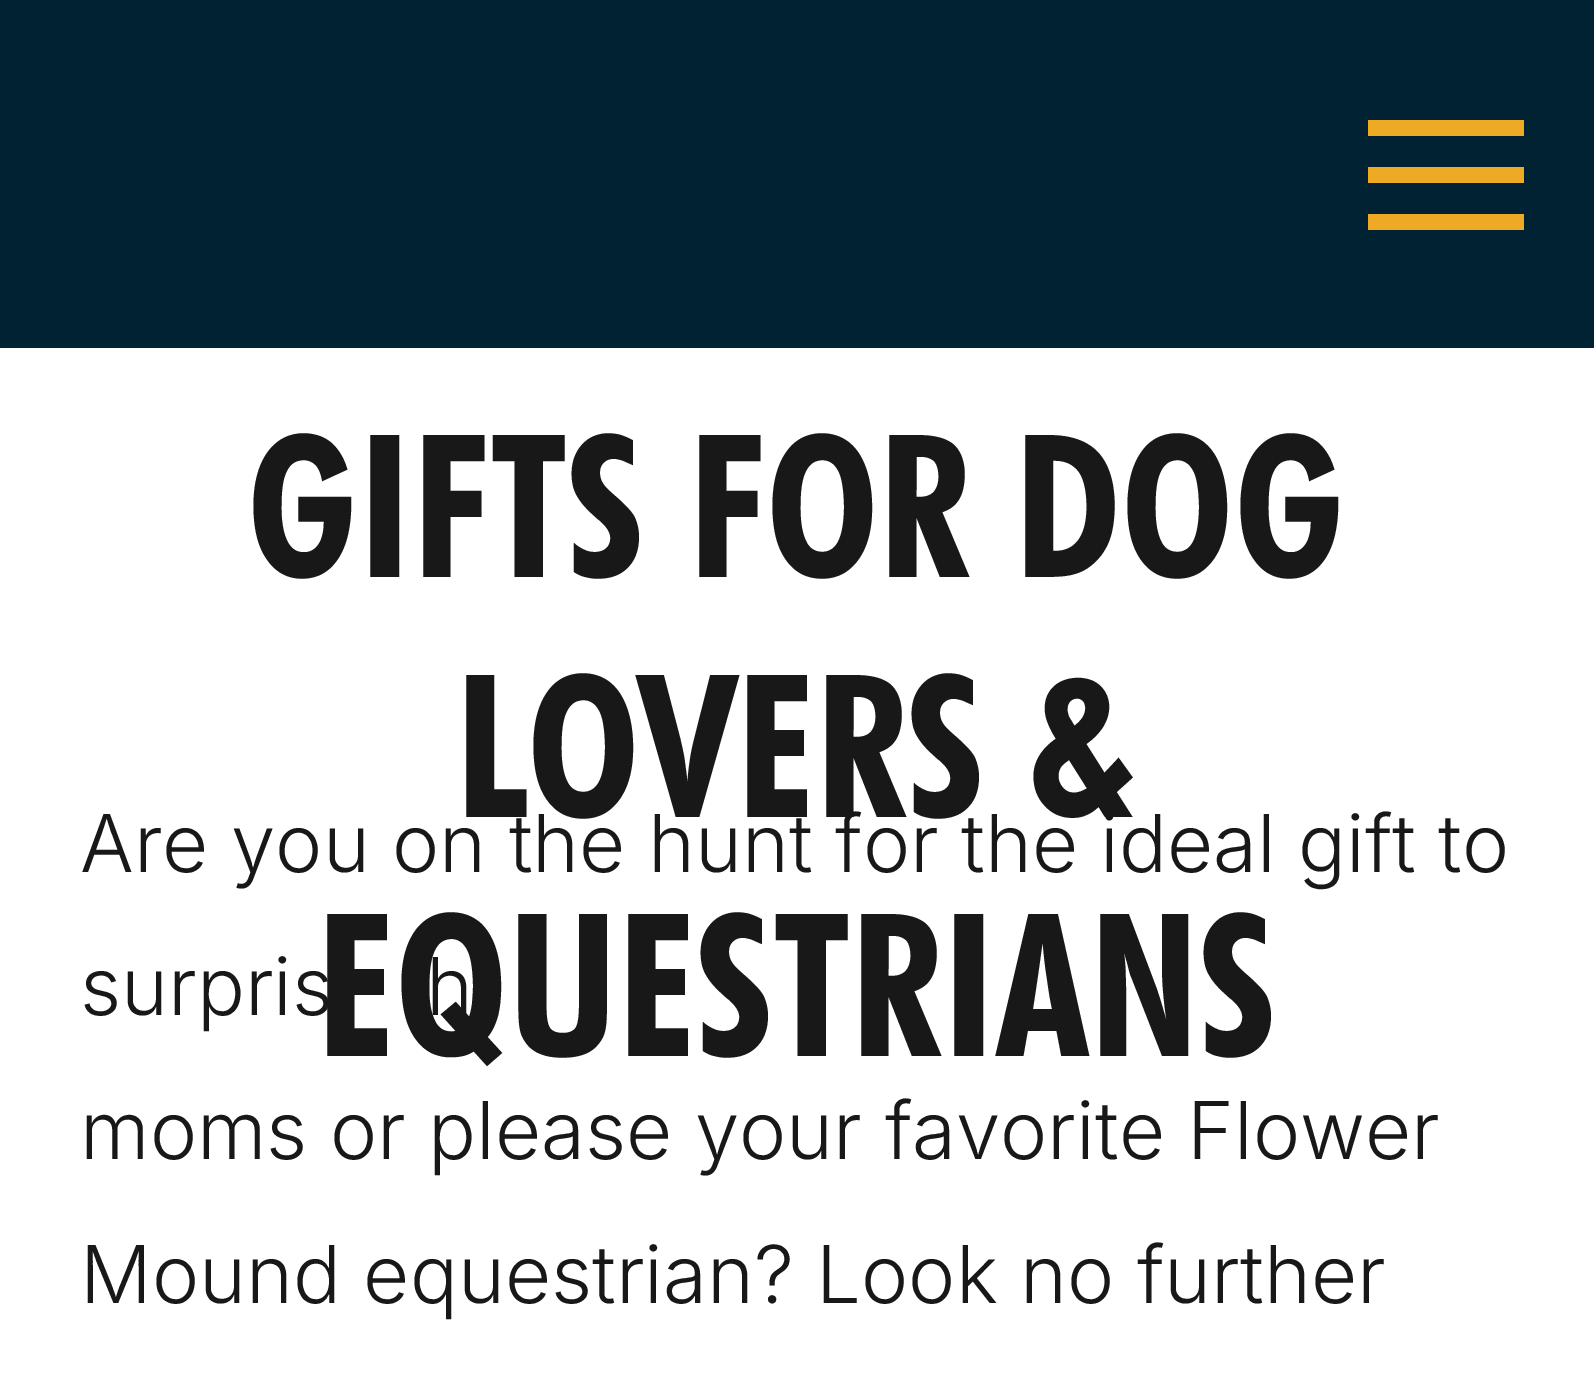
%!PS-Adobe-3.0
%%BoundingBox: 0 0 1594 1397
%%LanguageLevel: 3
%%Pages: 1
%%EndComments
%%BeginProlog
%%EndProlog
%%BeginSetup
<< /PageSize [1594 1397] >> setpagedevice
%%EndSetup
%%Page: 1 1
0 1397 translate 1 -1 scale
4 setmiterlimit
1 setgray
0 0 1594 1397 rectfill
0 0.133 0.2 setrgbcolor
0 0 1594 348 rectfill
0.933 0.667 0.145 setrgbcolor
newpath 1368 167 moveto 1524 167 lineto 1524 183 lineto 1368 183 lineto closepath 1368 120 moveto 1524 120 lineto 1524 136 lineto 1368 136 lineto closepath 1368 214 moveto 1524 214 lineto 1524 230 lineto 1368 230 lineto closepath fill
/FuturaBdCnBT-Bold [199.5 0 0 -199.5 0 0] selectfont
0.094 setgray
247 577 moveto (GIFTS FOR DOG) show
455 817 moveto (LOVERS &) show
316 1056 moveto (EQUESTRIANS) show
/Inter-Light [79.75 0 0 -79.75 0 0] selectfont
80 872 moveto (Are you on the hunt for the ideal gift to) show
80 1015 moveto (surpris) show
426 1015 moveto (h) show
80 1159 moveto (moms or please your favorite Flower) show
80 1303 moveto (Mound equestrian? Look no further) show
showpage
%%EOF
